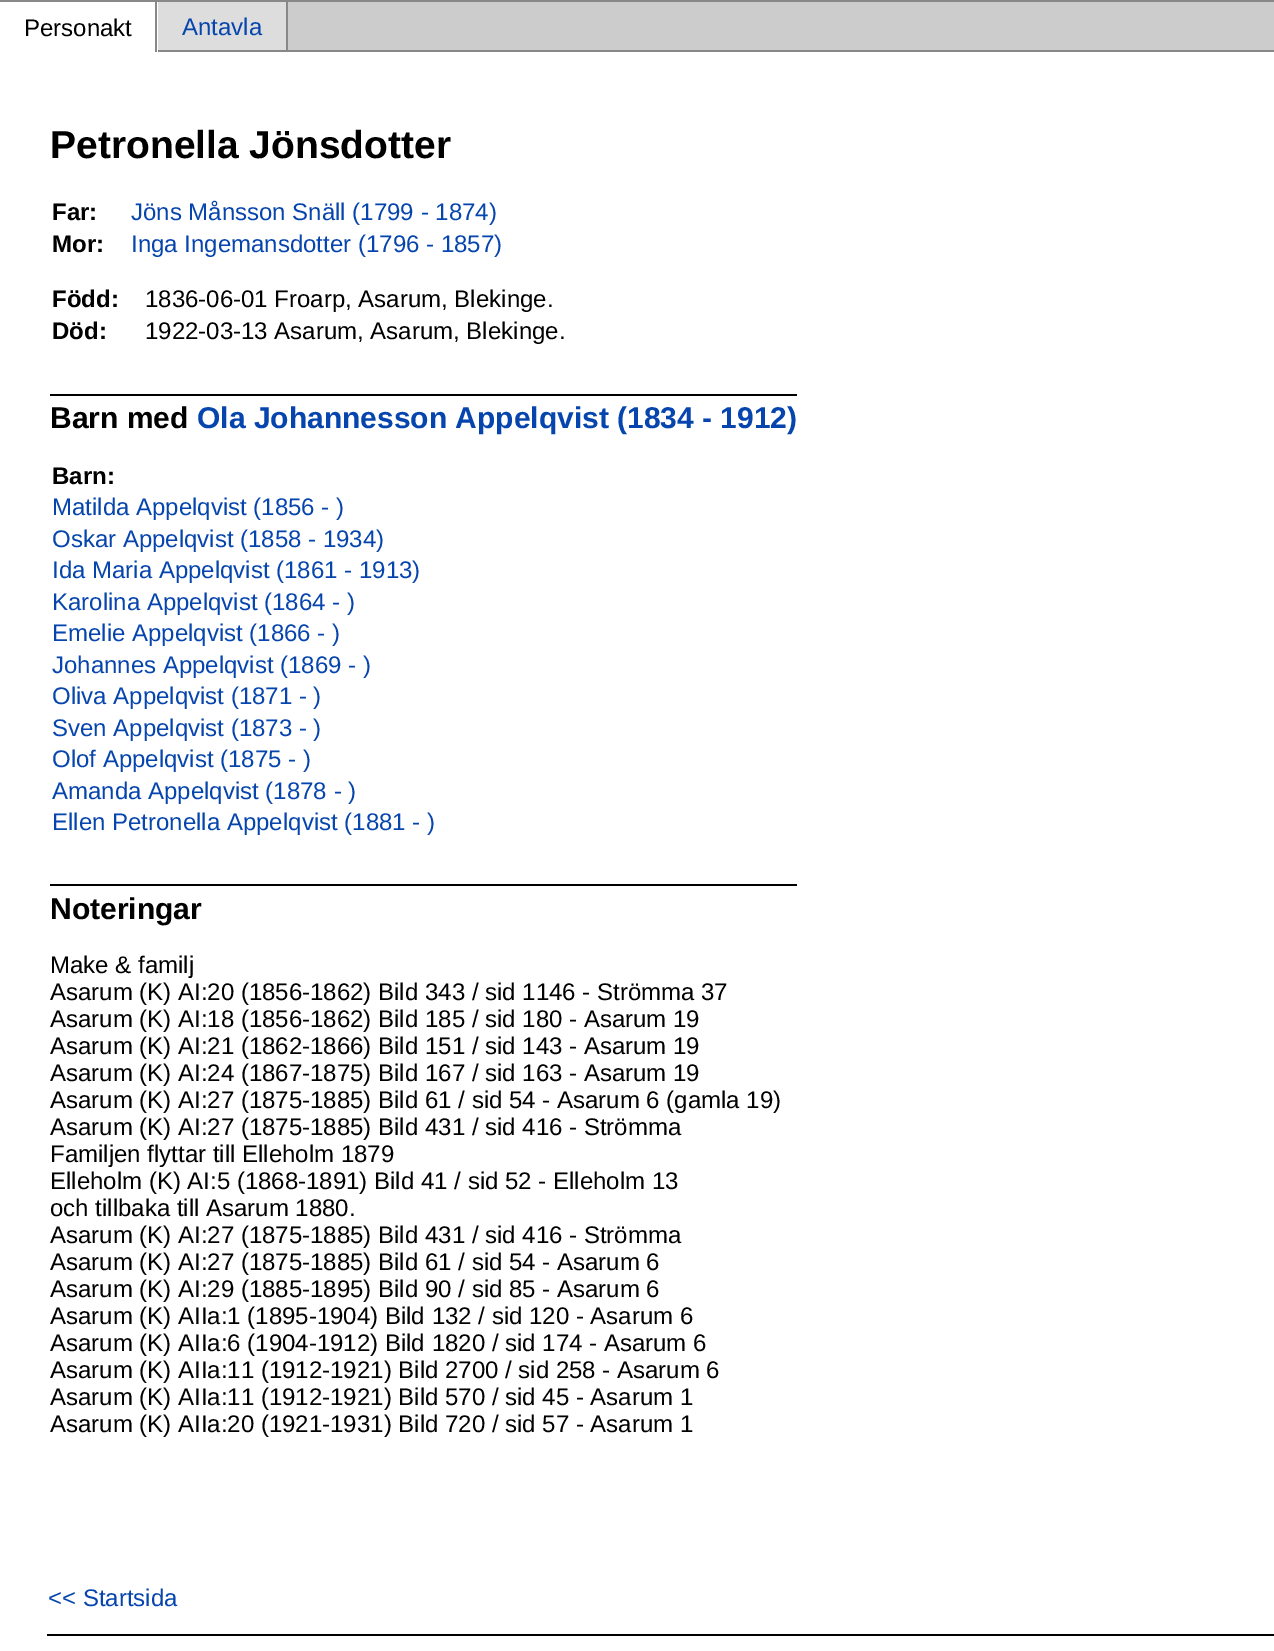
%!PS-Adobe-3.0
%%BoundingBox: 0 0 1274 1651
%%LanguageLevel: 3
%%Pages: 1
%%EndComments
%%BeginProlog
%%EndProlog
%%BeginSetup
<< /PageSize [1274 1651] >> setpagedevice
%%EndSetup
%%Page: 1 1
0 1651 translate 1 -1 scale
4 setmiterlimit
1 setgray
0 0 1274 1651 rectfill
0.533 setgray
0 0 1274 2 rectfill
155 0 2 52 rectfill
0.867 setgray
158 2 128 48 rectfill
0.533 setgray
286 0 2 52 rectfill
158 50 1116 2 rectfill
0.8 setgray
288 2 986 48 rectfill
0 setgray
50 394 747 2 rectfill
50 884 747 2 rectfill
47 1634 1227 2 rectfill
/LiberationSans-Regular [24 0 0 -24 0 0] selectfont
24 36 moveto (Personakt) show
0.024 0.271 0.678 setrgbcolor
182 35 moveto (Antavla) show
/LiberationSans-Bold [39 0 0 -39 0 0] selectfont
0 setgray
50 158 moveto (Petronella Jönsdotter) show
/LiberationSans-Bold [24 0 0 -24 0 0] selectfont
52 220 moveto (Far:) show
/LiberationSans-Regular [24 0 0 -24 0 0] selectfont
0.024 0.271 0.678 setrgbcolor
131 220 moveto (Jöns Månsson Snäll \(1799 - 1874\)) show
/LiberationSans-Bold [24 0 0 -24 0 0] selectfont
0 setgray
52 252 moveto (Mor:) show
/LiberationSans-Regular [24 0 0 -24 0 0] selectfont
0.024 0.271 0.678 setrgbcolor
131 252 moveto (Inga Ingemansdotter \(1796 - 1857\)) show
/LiberationSans-Bold [24 0 0 -24 0 0] selectfont
0 setgray
52 307 moveto (Född:) show
/LiberationSans-Regular [24 0 0 -24 0 0] selectfont
145 307 moveto (1836-06-01 Froarp, Asarum, Blekinge.) show
/LiberationSans-Bold [24 0 0 -24 0 0] selectfont
52 339 moveto (Död:) show
/LiberationSans-Regular [24 0 0 -24 0 0] selectfont
145 339 moveto (1922-03-13 Asarum, Asarum, Blekinge.) show
/LiberationSans-Bold [30 0 0 -30 0 0] selectfont
50 428 moveto (Barn med) show
0.024 0.271 0.678 setrgbcolor
197 428 moveto (Ola Johannesson Appelqvist \(1834 - 1912\)) show
/LiberationSans-Bold [24 0 0 -24 0 0] selectfont
0 setgray
52 484 moveto (Barn:) show
/LiberationSans-Regular [24 0 0 -24 0 0] selectfont
0.024 0.271 0.678 setrgbcolor
52 515 moveto (Matilda Appelqvist \(1856 - \)) show
52 547 moveto (Oskar Appelqvist \(1858 - 1934\)) show
52 578 moveto (Ida Maria Appelqvist \(1861 - 1913\)) show
52 610 moveto (Karolina Appelqvist \(1864 - \)) show
52 641 moveto (Emelie Appelqvist \(1866 - \)) show
52 673 moveto (Johannes Appelqvist \(1869 - \)) show
52 704 moveto (Oliva Appelqvist \(1871 - \)) show
52 736 moveto (Sven Appelqvist \(1873 - \)) show
52 767 moveto (Olof Appelqvist \(1875 - \)) show
52 799 moveto (Amanda Appelqvist \(1878 - \)) show
52 830 moveto (Ellen Petronella Appelqvist \(1881 - \)) show
/LiberationSans-Bold [30 0 0 -30 0 0] selectfont
0 setgray
50 919 moveto (Noteringar) show
/LiberationSans-Regular [24 0 0 -24 0 0] selectfont
50 973 moveto (Make & familj) show
50 1000 moveto (Asarum \(K\) AI:20 \(1856-1862\) Bild 343 / sid 1146 - Strömma 37) show
50 1027 moveto (Asarum \(K\) AI:18 \(1856-1862\) Bild 185 / sid 180 - Asarum 19) show
50 1054 moveto (Asarum \(K\) AI:21 \(1862-1866\) Bild 151 / sid 143 - Asarum 19) show
50 1081 moveto (Asarum \(K\) AI:24 \(1867-1875\) Bild 167 / sid 163 - Asarum 19) show
50 1108 moveto (Asarum \(K\) AI:27 \(1875-1885\) Bild 61 / sid 54 - Asarum 6 \(gamla 19\)) show
50 1135 moveto (Asarum \(K\) AI:27 \(1875-1885\) Bild 431 / sid 416 - Strömma) show
50 1162 moveto (Familjen flyttar till Elleholm 1879) show
50 1189 moveto (Elleholm \(K\) AI:5 \(1868-1891\) Bild 41 / sid 52 - Elleholm 13) show
50 1216 moveto (och tillbaka till Asarum 1880.) show
50 1243 moveto (Asarum \(K\) AI:27 \(1875-1885\) Bild 431 / sid 416 - Strömma) show
50 1270 moveto (Asarum \(K\) AI:27 \(1875-1885\) Bild 61 / sid 54 - Asarum 6) show
50 1297 moveto (Asarum \(K\) AI:29 \(1885-1895\) Bild 90 / sid 85 - Asarum 6) show
50 1324 moveto (Asarum \(K\) AIIa:1 \(1895-1904\) Bild 132 / sid 120 - Asarum 6) show
50 1351 moveto (Asarum \(K\) AIIa:6 \(1904-1912\) Bild 1820 / sid 174 - Asarum 6) show
50 1378 moveto (Asarum \(K\) AIIa:11 \(1912-1921\) Bild 2700 / sid 258 - Asarum 6) show
50 1405 moveto (Asarum \(K\) AIIa:11 \(1912-1921\) Bild 570 / sid 45 - Asarum 1) show
50 1432 moveto (Asarum \(K\) AIIa:20 \(1921-1931\) Bild 720 / sid 57 - Asarum 1) show
0.024 0.271 0.678 setrgbcolor
48 1606 moveto (<< Startsida) show
showpage
%%EOF
